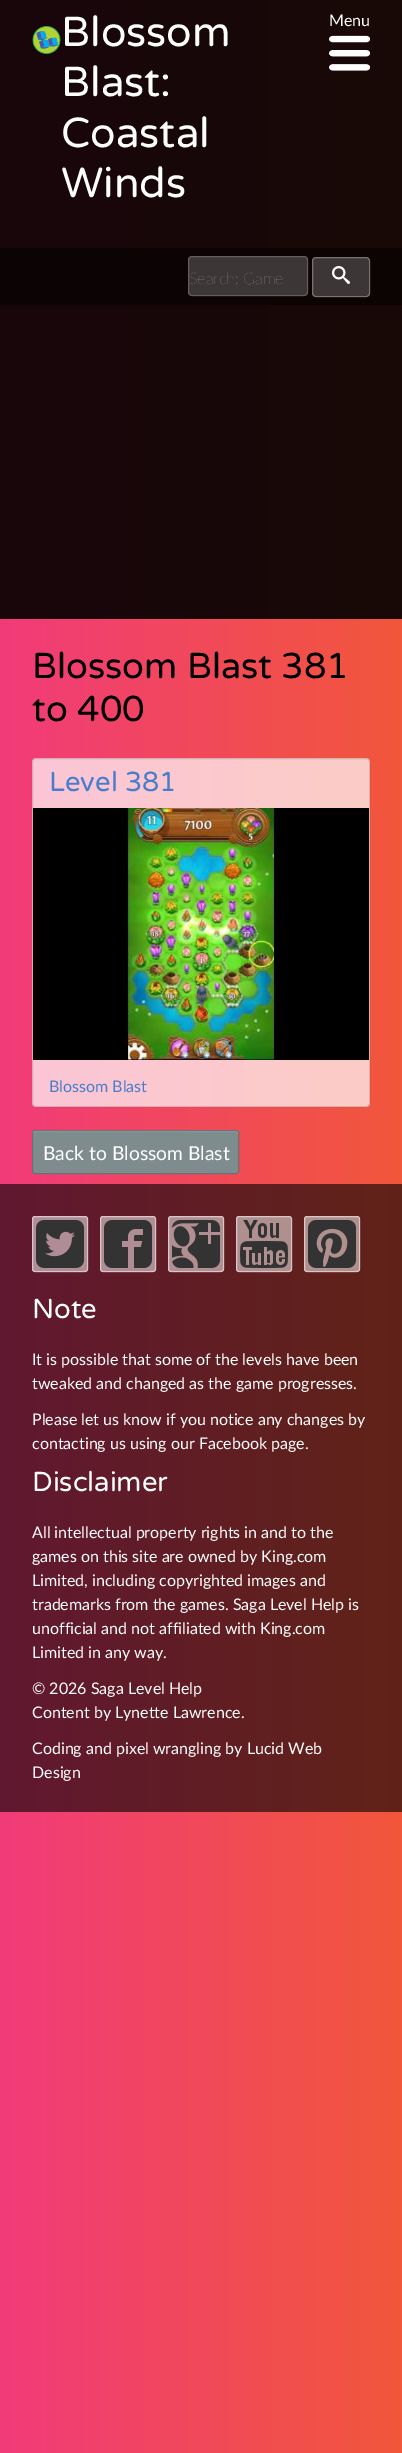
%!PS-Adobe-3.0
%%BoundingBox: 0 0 402 2453
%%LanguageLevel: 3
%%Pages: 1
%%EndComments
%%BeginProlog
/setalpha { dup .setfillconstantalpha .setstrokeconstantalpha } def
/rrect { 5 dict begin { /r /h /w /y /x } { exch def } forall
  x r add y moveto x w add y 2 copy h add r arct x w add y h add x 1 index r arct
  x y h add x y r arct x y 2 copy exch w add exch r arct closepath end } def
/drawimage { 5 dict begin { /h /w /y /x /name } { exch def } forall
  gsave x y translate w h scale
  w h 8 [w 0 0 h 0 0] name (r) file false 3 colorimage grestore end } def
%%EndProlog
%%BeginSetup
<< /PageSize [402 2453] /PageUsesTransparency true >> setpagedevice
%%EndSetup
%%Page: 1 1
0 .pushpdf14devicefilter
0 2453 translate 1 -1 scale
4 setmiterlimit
1 setgray
0 0 402 2453 rectfill
gsave newpath 0 619 moveto 402 619 lineto 402 2453 lineto 0 2453 lineto closepath clip newpath
<< /ShadingType 2 /ColorSpace /DeviceRGB /Coords [0 906 402 906] /Extend [true true] /Function << /FunctionType 2 /Domain [0 1] /C0 [0.945 0.231 0.478] /C1 [0.945 0.341 0.231] /N 1 >> >> shfill grestore
gsave newpath 0 1184 moveto 402 1184 lineto 402 1812 lineto 0 1812 lineto closepath clip newpath
<< /ShadingType 2 /ColorSpace /DeviceRGB /Coords [0 906 402 906] /Extend [true true] /Function << /FunctionType 2 /Domain [0 1] /C0 [0.376 0.094 0.192] /C1 [0.376 0.137 0.094] /N 1 >> >> shfill grestore
gsave newpath 0 0 moveto 402 0 lineto 402 619 lineto 0 619 lineto closepath clip newpath
<< /ShadingType 2 /ColorSpace /DeviceRGB /Coords [0 906 402 906] /Extend [true true] /Function << /FunctionType 2 /Domain [0 1] /C0 [0.094 0.024 0.047] /C1 [0.094 0.035 0.024] /N 1 >> >> shfill grestore
gsave newpath 0 248 moveto 402 248 lineto 402 305 lineto 0 305 lineto closepath clip newpath
<< /ShadingType 2 /ColorSpace /DeviceRGB /Coords [0 906 402 906] /Extend [true true] /Function << /FunctionType 2 /Domain [0 1] /C0 [0.047 0.012 0.024] /C1 [0.047 0.02 0.012] /N 1 >> >> shfill grestore
(images/1.raw) 32 26 29 28 drawimage
(images/2.raw) 329 35 41 36 drawimage
0.239 0.212 0.212 setrgbcolor
188 256 120 40 4 rrect fill
0.2 setalpha
1 setgray
188.5 256.5 119 39 3.5 rrect stroke
1 setalpha
0.239 0.212 0.212 setrgbcolor
312 257 58 40 4 rrect fill
0.3 setalpha
1 setgray
312.5 257.5 57 39 3.5 rrect stroke
1 setalpha
(images/3.raw) 332 266 18 18 drawimage
0.7 setalpha
32 758 338 349 4 rrect fill
0.2 setalpha
0.251 setgray
32.5 758.5 337 348 3.5 rrect stroke
1 setalpha
(images/4.raw) 33 808 336 252 drawimage
0.498 0.549 0.553 setrgbcolor
32 1130 207 44 3 rrect fill
0.6 0.639 0.643 setrgbcolor
newpath 35 1132 moveto 236 1132 lineto 238 1133 lineto 238 1134 lineto 238 1133 238 1131 236 1131 curveto 35 1131 lineto 33 1131 33 1133 33 1134 curveto 33 1133 34 1132 35 1132 curveto closepath fill
0.4 0.447 0.451 setrgbcolor
32.5 1130.5 206 43 2.5 rrect stroke
0.5 setalpha
1 setgray
32 1216 56 56 3 rrect fill
32.5 1216.5 55 55 2.5 rrect stroke
1 setalpha
(images/5.raw) 36 1220 48 48 drawimage
0.5 setalpha
100 1216 56 56 3 rrect fill
100.5 1216.5 55 55 2.5 rrect stroke
1 setalpha
(images/6.raw) 104 1220 48 48 drawimage
0.5 setalpha
168 1216 56 56 3 rrect fill
168.5 1216.5 55 55 2.5 rrect stroke
1 setalpha
(images/7.raw) 172 1220 48 48 drawimage
0.5 setalpha
236 1216 56 56 3 rrect fill
236.5 1216.5 55 55 2.5 rrect stroke
1 setalpha
(images/8.raw) 240 1220 48 48 drawimage
0.5 setalpha
304 1216 56 56 3 rrect fill
304.5 1216.5 55 55 2.5 rrect stroke
1 setalpha
(images/9.raw) 308 1220 48 48 drawimage
/VarelaRound-Regular [42 0 0 -42 0 0] selectfont
61 46 moveto (Blossom) show
61 96 moveto (Blast:) show
61 147 moveto (Coastal) show
61 197 moveto (Winds) show
/Lato-Regular [16 0 0 -16 0 0] selectfont
329 26 moveto (Menu) show
/Lato-ExtraLight [16 0 0 -16 0 0] selectfont
0.62 0.608 0.608 setrgbcolor
189 284 moveto (Search: Game) show
/VarelaRound-Regular [36 0 0 -36 0 0] selectfont
0 setgray
32 678 moveto (Blossom Blast 381) show
32 721 moveto (to 400) show
/VarelaRound-Regular [27.5 0 0 -27.5 0 0] selectfont
0.278 0.49 0.792 setrgbcolor
49 791 moveto (Level 381) show
/Lato-Regular [16 0 0 -16 0 0] selectfont
49 1092 moveto (Blossom Blast) show
/Lato-Regular [19.25 0 0 -19.25 0 0] selectfont
1 setgray
43 1160 moveto (Back to Blossom Blast) show
/VarelaRound-Regular [27.5 0 0 -27.5 0 0] selectfont
32 1318 moveto (Note) show
/Lato-Regular [16 0 0 -16 0 0] selectfont
32 1365 moveto (It is possible that some of the levels have been) show
32 1389 moveto (tweaked and changed as the game progresses.) show
32 1425 moveto (Please let us know if you notice any changes by) show
32 1449 moveto (contacting us using our Facebook page.) show
/VarelaRound-Regular [27.5 0 0 -27.5 0 0] selectfont
32 1491 moveto (Disclaimer) show
/Lato-Regular [16 0 0 -16 0 0] selectfont
32 1538 moveto (All intellectual property rights in and to the) show
32 1562 moveto (games on this site are owned by King.com) show
32 1586 moveto (Limited, including copyrighted images and) show
32 1610 moveto (trademarks from the games. Saga Level Help is) show
32 1634 moveto (unofficial and not affiliated with King.com) show
32 1658 moveto (Limited in any way.) show
32 1694 moveto (© 2026 Saga Level Help) show
32 1718 moveto (Content by Lynette Lawrence.) show
32 1754 moveto (Coding and pixel wrangling by Lucid Web) show
32 1778 moveto (Design) show
.poppdf14devicefilter showpage
%%EOF
